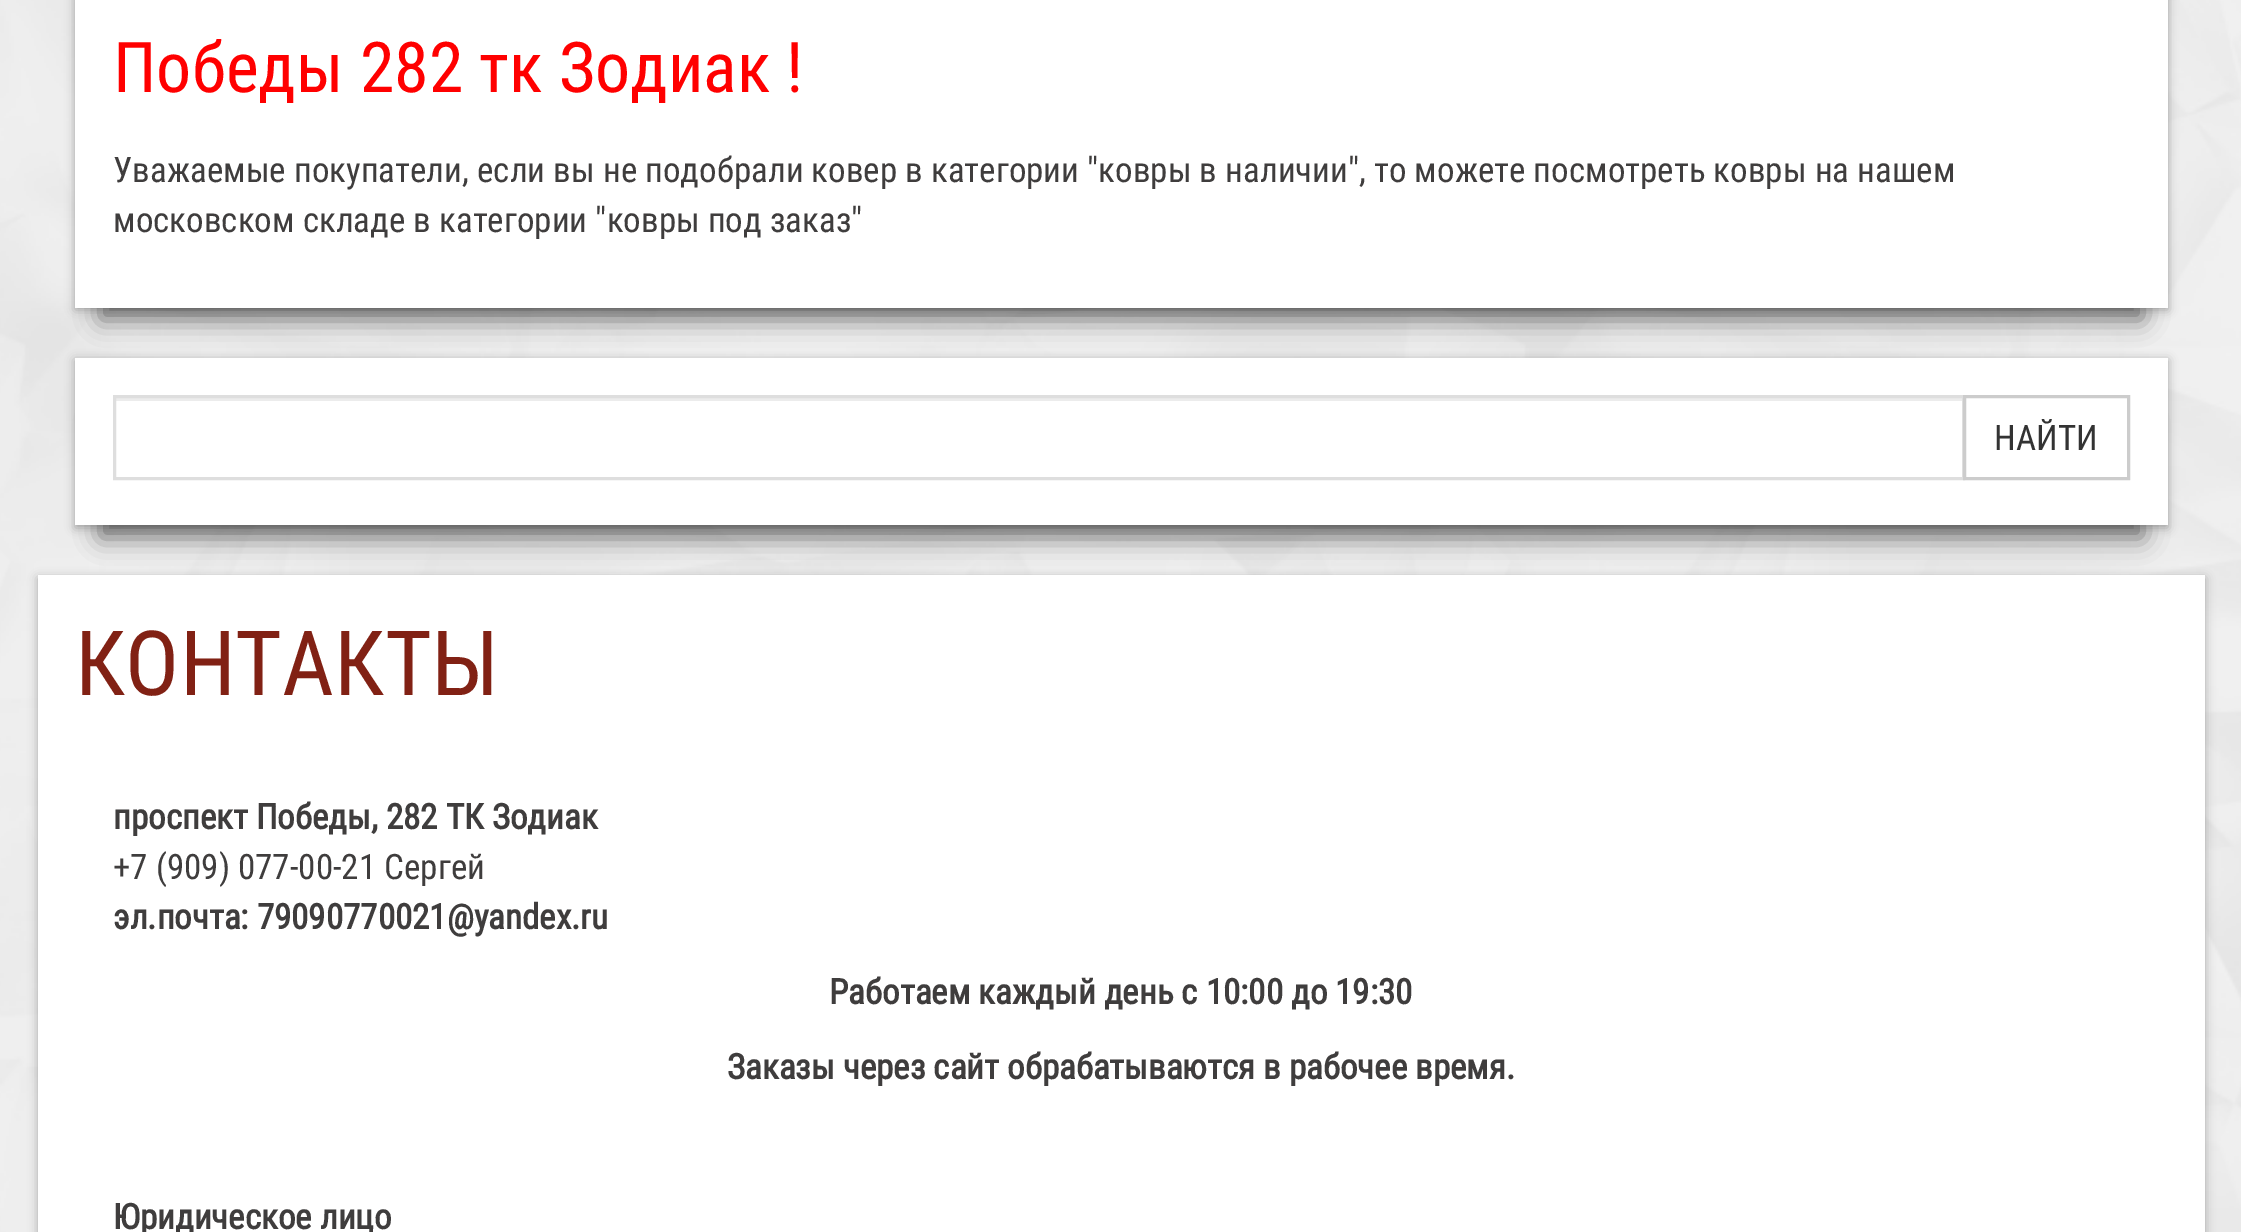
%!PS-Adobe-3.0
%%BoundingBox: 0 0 2241 1232
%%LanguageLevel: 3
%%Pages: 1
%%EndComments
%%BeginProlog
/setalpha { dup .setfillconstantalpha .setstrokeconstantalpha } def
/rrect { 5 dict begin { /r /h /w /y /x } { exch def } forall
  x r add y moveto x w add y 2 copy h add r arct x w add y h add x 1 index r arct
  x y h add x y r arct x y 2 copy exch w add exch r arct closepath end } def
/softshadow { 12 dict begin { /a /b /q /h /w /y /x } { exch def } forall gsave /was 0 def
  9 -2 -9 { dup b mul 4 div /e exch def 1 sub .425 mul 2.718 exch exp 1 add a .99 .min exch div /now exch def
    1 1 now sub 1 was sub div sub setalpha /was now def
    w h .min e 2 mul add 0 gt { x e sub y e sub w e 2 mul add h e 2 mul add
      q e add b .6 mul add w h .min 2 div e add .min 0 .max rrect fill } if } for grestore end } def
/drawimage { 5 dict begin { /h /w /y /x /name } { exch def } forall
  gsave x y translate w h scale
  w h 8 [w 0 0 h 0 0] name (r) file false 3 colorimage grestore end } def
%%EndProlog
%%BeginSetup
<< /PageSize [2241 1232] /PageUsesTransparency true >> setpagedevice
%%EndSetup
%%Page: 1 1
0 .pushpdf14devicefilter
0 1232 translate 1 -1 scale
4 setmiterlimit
0.945 setgray
0 0 2241 1232 rectfill
(images/1.raw) 0 0 2241 1232 drawimage
0 setgray
75 -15 2093 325 0 5 0.3 softshadow
100 -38 2043 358 0 12.5 0.5 softshadow
1 setgray
75 0 2093 308 rectfill
0 setgray
75 360 2093 168 0 5 0.3 softshadow
100 420 2043 118 0 12.5 0.5 softshadow
1 setgray
75 358 2093 167 rectfill
0.925 setgray
115 398 1848 3 rectfill
0.871 setgray
3 setlinewidth
114.5 396.5 1849 82 rectstroke
0.8 setgray
1964.5 396.5 164 82 rectstroke
0 setgray
38 578 2167 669 0 5 0.3 softshadow
1 setgray
38 575 2167 657 rectfill
/RobotoCondensed-Regular [70 0 0 -70 0 0] selectfont
1 0 0 setrgbcolor
113 92 moveto (Победы 282 тк Зодиак !) show
/RobotoCondensed-Regular [35 0 0 -35 0 0] selectfont
0.247 0.239 0.239 setrgbcolor
113 182 moveto (Уважаемые покупатели, если вы не подобрали ковер в категории "ковры в наличии", то можете посмотреть ковры на нашем) show
113 232 moveto (московском складе в категории "ковры под заказ") show
0.2 setgray
1994 450 moveto (НАЙТИ) show
/RobotoCondensed-Regular [90 0 0 -90 0 0] selectfont
0.506 0.129 0.078 setrgbcolor
75 695 moveto (КОНТАКТЫ) show
/RobotoCondensed-Bold [35 0 0 -35 0 0] selectfont
0.247 0.239 0.239 setrgbcolor
113 829 moveto (проспект Победы, 282 ТК Зодиак) show
/RobotoCondensed-Regular [35 0 0 -35 0 0] selectfont
113 879 moveto (+7 \(909\) 077-00-21 Сергей) show
/RobotoCondensed-Bold [35 0 0 -35 0 0] selectfont
113 929 moveto (эл.почта: 79090770021@yandex.ru) show
829 1004 moveto (Работаем каждый день с 10:00 до 19:30) show
727 1079 moveto (Заказы через сайт обрабатываются в рабочее время.) show
113 1229 moveto (Юридическое лицо) show
.poppdf14devicefilter showpage
%%EOF
